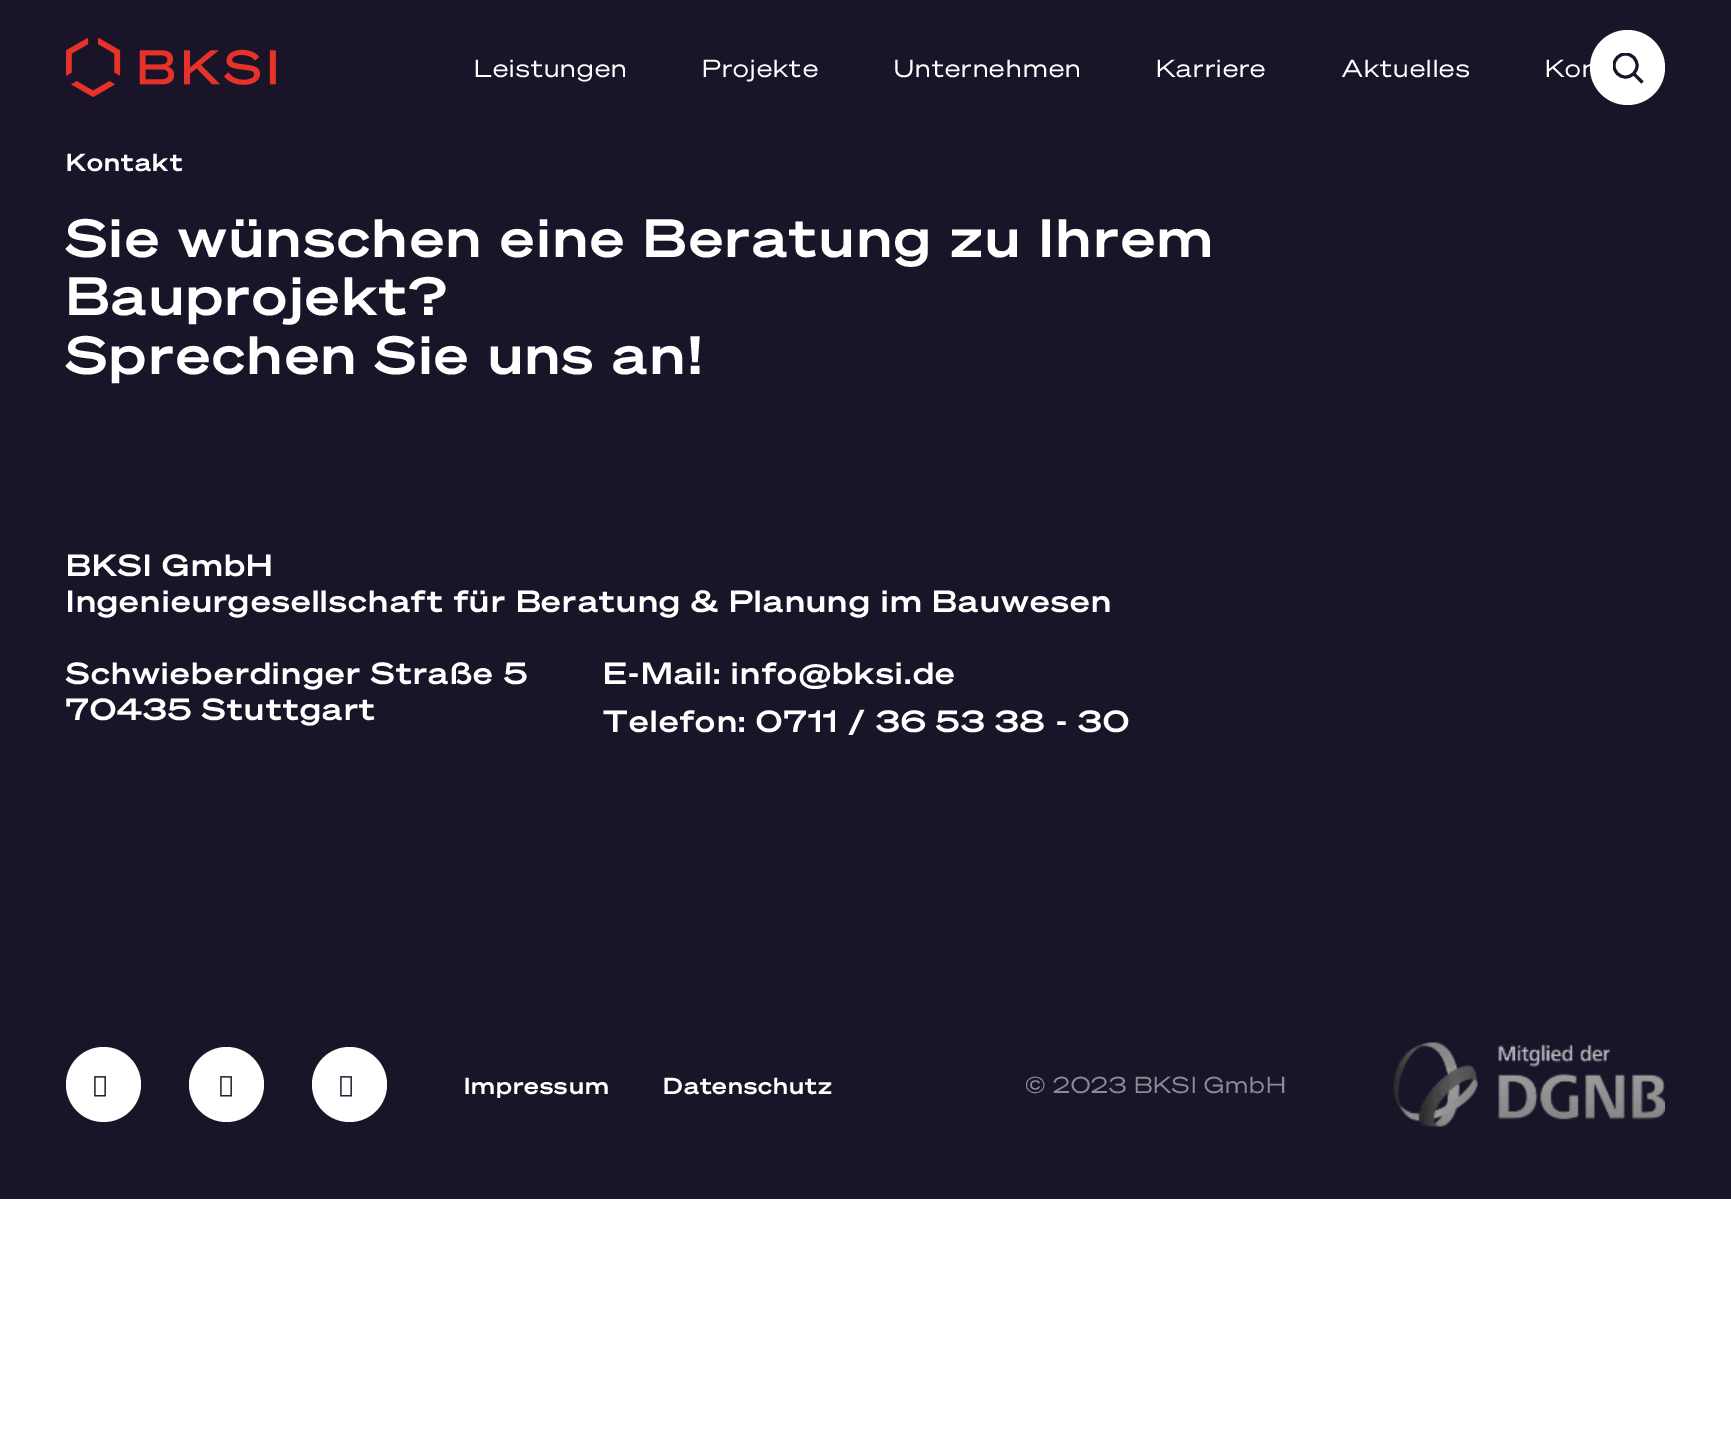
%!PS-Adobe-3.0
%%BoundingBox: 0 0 1731 1447
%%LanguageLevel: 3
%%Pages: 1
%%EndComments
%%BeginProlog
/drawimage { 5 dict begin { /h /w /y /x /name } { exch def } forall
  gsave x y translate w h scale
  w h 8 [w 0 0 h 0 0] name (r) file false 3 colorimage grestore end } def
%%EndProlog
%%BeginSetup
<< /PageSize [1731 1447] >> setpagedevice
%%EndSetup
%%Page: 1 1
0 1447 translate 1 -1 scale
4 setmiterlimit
1 setgray
0 0 1731 1447 rectfill
0.098 0.078 0.157 setrgbcolor
0 0 1731 1199 rectfill
(images/1.raw) 66 38 210 59 drawimage
1 setgray
newpath 1627.5 67.5 37.5 0 360 arc closepath fill
0.098 0.078 0.157 setrgbcolor
3 setlinewidth
newpath 1642.5 82.5 moveto 1634 74 lineto stroke
gsave
1613 53 30 30 rectclip
newpath 1625.5 65.5 11.5 0 360 arc closepath stroke
grestore
1 setgray
newpath 103.5 1084.5 37.5 0 360 arc closepath fill
(images/2.raw) 94 1076 12 21 drawimage
newpath 226.5 1084.5 37.5 0 360 arc closepath fill
(images/2.raw) 220 1076 12 21 drawimage
newpath 349.5 1084.5 37.5 0 360 arc closepath fill
(images/2.raw) 340 1076 12 21 drawimage
(images/3.raw) 1393 1042 272 85 drawimage
/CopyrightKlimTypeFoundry-Regular [24 0 0 -24 0 0] selectfont
474 77 moveto 1.25 0 (Leistungen) ashow
702 77 moveto 1.25 0 (Projekte) ashow
894 77 moveto 1.25 0 (Unternehmen) ashow
1156 77 moveto 1.25 0 (Karriere) ashow
1342 77 moveto 1.25 0 (Aktuelles) ashow
1545 77 moveto 1.25 0 (Kon) ashow
/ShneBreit-SemiBold [24 0 0 -24 0 0] selectfont
66 171 moveto 1.25 0 (Kontakt) ashow
/ShneBreit-SemiBold [52.5 0 0 -52.5 0 0] selectfont
66 257 moveto 2.6 0 (Sie wünschen eine Beratung zu Ihrem) ashow
66 315 moveto 2.6 0 (Bauprojekt?) ashow
66 374 moveto 2.6 0 (Sprechen Sie uns an!) ashow
/ShneBreit-SemiBold [30 0 0 -30 0 0] selectfont
66 576 moveto 1.5 0 (BKSI GmbH) ashow
66 612 moveto 1.5 0 (Ingenieurgesellschaft für Beratung & Planung im Bauwesen) ashow
66 684 moveto 1.5 0 (Schwieberdinger Straße 5) ashow
66 720 moveto 1.5 0 (70435 Stuttgart) ashow
603 684 moveto 1.5 0 (E-Mail: info@bksi.de) ashow
603 732 moveto 1.5 0 (Telefon: 0711 / 36 53 38 - 30) ashow
/ShneBreit-SemiBold [22.5 0 0 -22.5 0 0] selectfont
464 1094 moveto 1.1 0 (Impressum) ashow
663 1094 moveto 1.1 0 (Datenschutz) ashow
/CopyrightKlimTypeFoundry-Regular [22.5 0 0 -22.5 0 0] selectfont
0.549 0.541 0.58 setrgbcolor
1025 1093 moveto 1.1 0 (© 2023 BKSI GmbH) ashow
showpage
%%EOF
